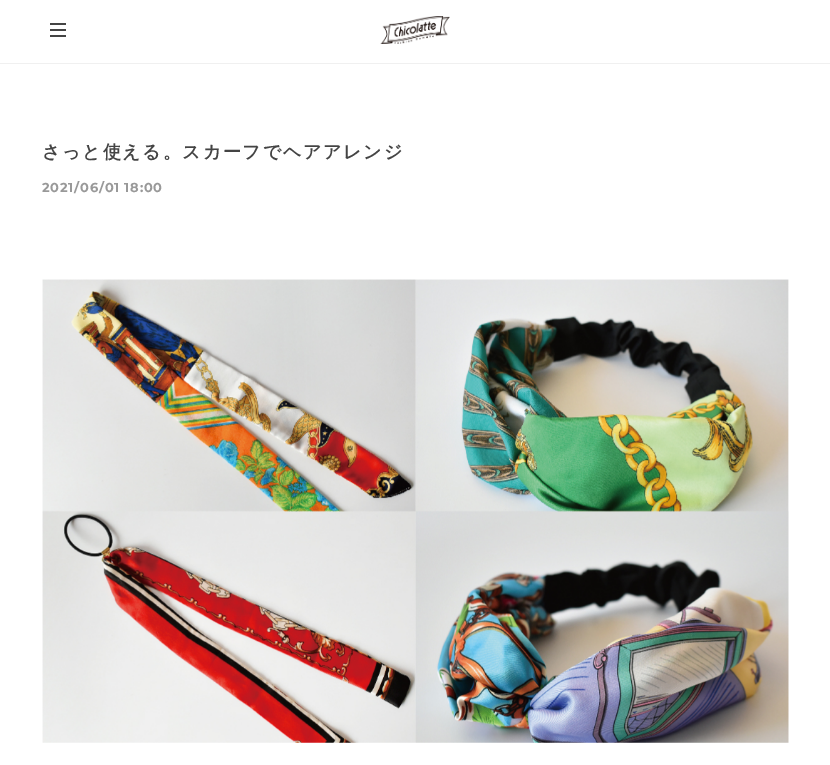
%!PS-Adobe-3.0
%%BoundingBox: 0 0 830 765
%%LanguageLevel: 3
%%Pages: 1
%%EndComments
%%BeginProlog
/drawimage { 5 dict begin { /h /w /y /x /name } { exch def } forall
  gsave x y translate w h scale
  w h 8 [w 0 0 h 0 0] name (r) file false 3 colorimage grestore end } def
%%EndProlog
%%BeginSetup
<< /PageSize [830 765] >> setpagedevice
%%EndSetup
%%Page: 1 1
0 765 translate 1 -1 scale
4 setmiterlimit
1 setgray
0 0 830 765 rectfill
0.941 setgray
0 63 830 1 rectfill
0.267 setgray
50 23 16 2 rectfill
50 29 16 2 rectfill
50 35 16 2 rectfill
(images/1.raw) 380 16 70 28 drawimage
(images/2.raw) 42 279 747 464 drawimage
/WenQuanYiZenHei-Bold [18 0 0 -18 0 0] selectfont
42 158 moveto 1.75 0 (さっと使える。スカーフでヘアアレンジ) ashow
/Montserrat-Bold [13 0 0 -13 0 0] selectfont
0.6 setgray
42 192 moveto 0.75 0 (2021/06/01 18:00) ashow
showpage
%%EOF
